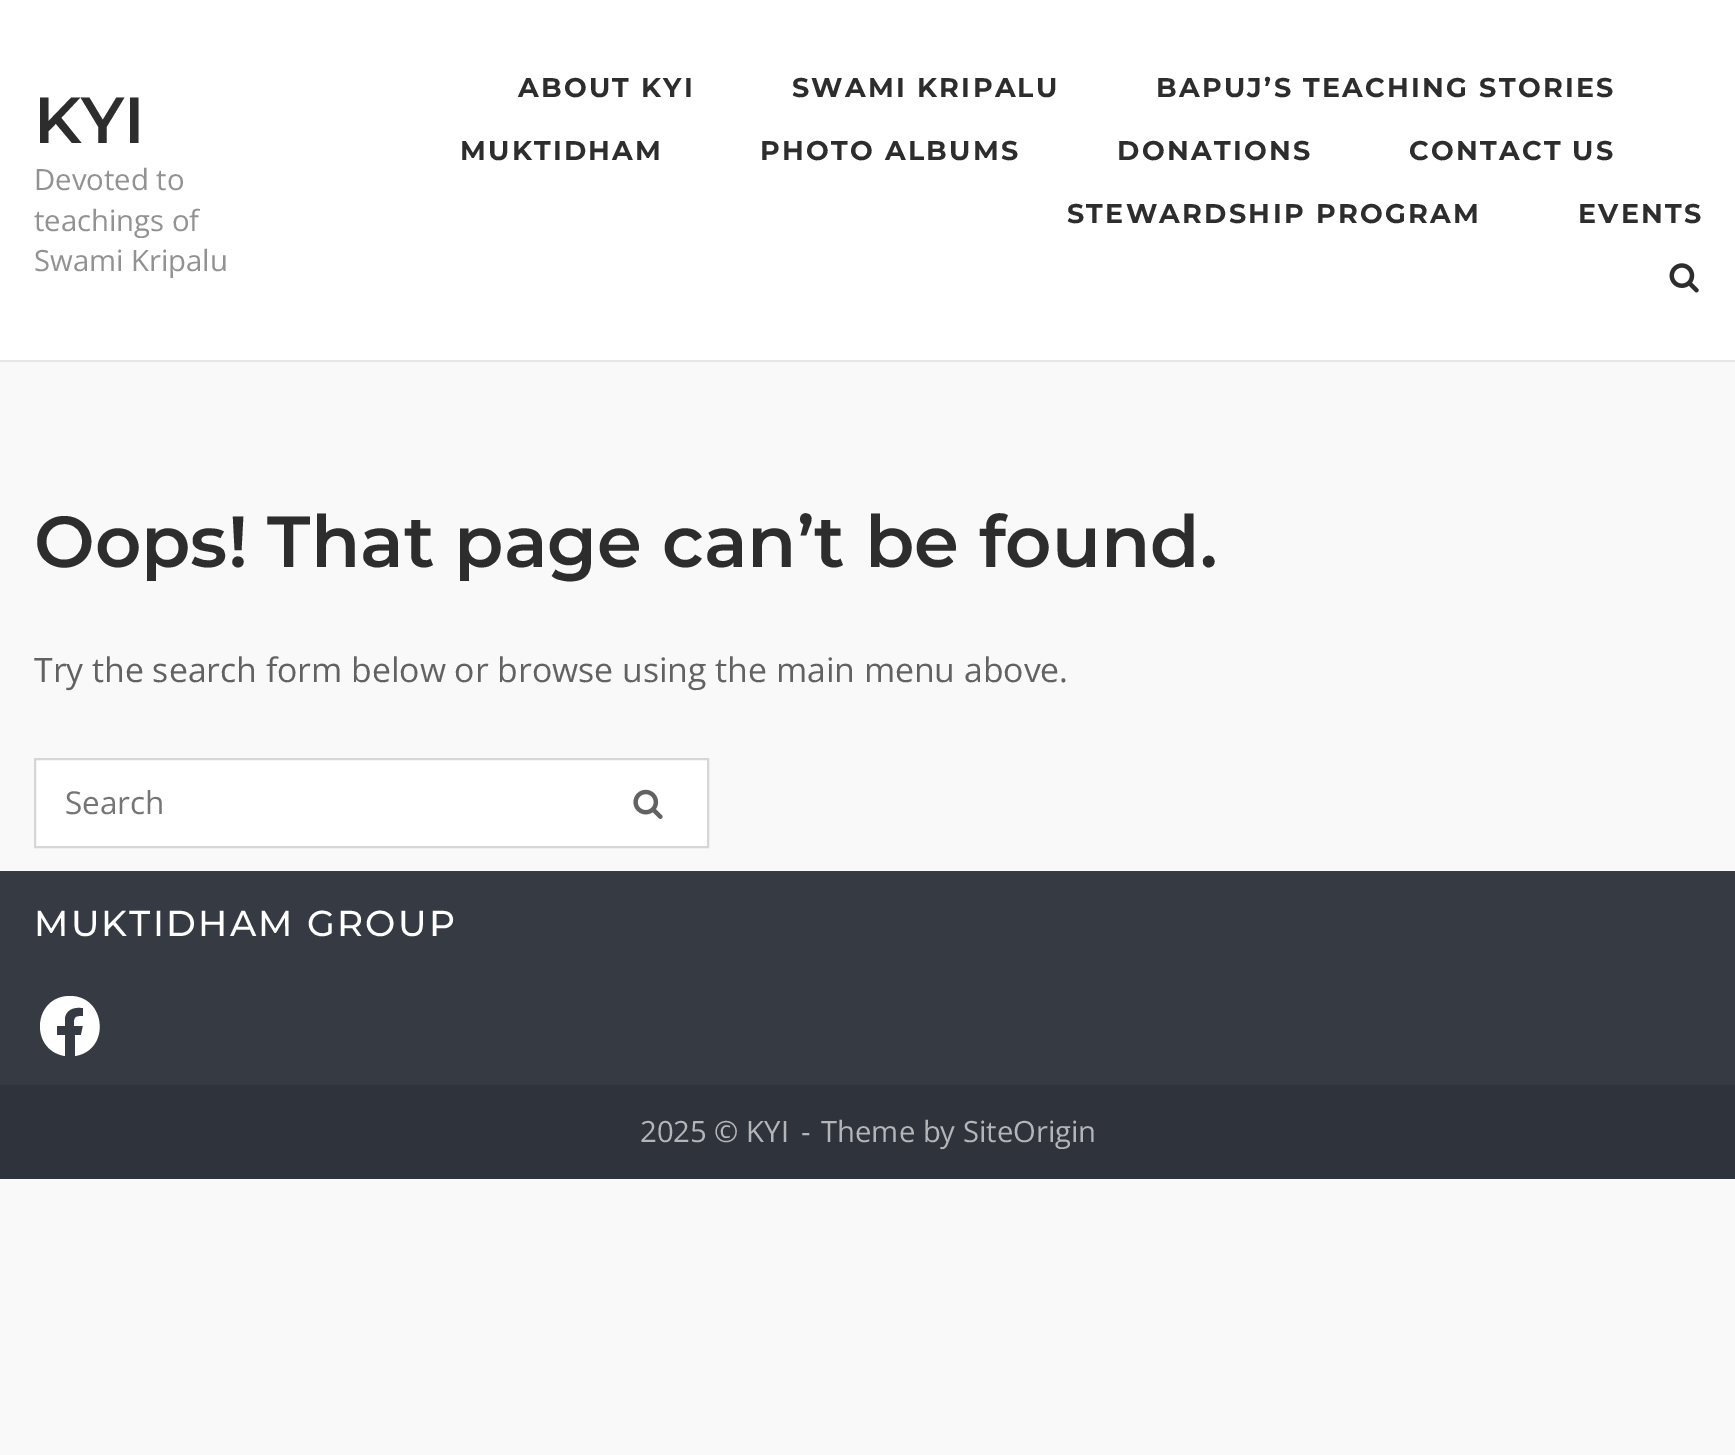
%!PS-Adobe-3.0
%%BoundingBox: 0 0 1735 1455
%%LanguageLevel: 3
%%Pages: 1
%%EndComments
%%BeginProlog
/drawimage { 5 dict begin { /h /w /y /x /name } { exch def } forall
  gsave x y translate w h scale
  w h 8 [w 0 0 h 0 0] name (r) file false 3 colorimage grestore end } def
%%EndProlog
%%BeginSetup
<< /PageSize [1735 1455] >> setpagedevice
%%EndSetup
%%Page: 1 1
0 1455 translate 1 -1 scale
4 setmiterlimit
0.976 setgray
0 0 1735 1455 rectfill
1 setgray
0 0 1735 360 rectfill
0.902 setgray
0 360 1735 2 rectfill
(images/1.raw) 1669 263 30 30 drawimage
1 setgray
newpath 35 759 moveto 708 759 lineto 708 847 lineto 35 847 lineto closepath gsave fill grestore
0.839 setgray
2 setlinewidth
stroke
(images/2.raw) 633 789 30 30 drawimage
0.212 0.227 0.263 setrgbcolor
0 871 1735 214 rectfill
1 setgray
newpath 70 996 moveto 33 996 29 1050 65 1056 curveto 65 1035 lineto 57 1035 lineto 57 1026 lineto 65 1026 lineto 65 1017 lineto 67 1008 76 1007 83 1008 curveto 83 1016 lineto 74 1016 74 1018 74 1026 curveto 83 1026 lineto 81 1035 lineto 75 1035 lineto 75 1056 lineto 111 1050 106 996 70 996 curveto closepath fill
0.184 0.2 0.231 setrgbcolor
0 1085 1735 94 rectfill
/Montserrat-SemiBold [65 0 0 -65 0 0] selectfont
0.176 setgray
34 143 moveto (KYI) show
/OpenSans-Regular [29.25 0 0 -29.25 0 0] selectfont
0.573 setgray
34 190 moveto (Devoted to) show
34 231 moveto (teachings of) show
34 271 moveto (Swami Kripalu) show
/Montserrat-Bold [27 0 0 -27 0 0] selectfont
0.176 setgray
518 97 moveto 2.25 0 (ABOUT KYI) ashow
792 97 moveto 2.25 0 (SWAMI KRIPALU) ashow
1156 97 moveto 2.25 0 (BAPUJ’S TEACHING STORIES) ashow
460 160 moveto 2.25 0 (MUKTIDHAM) ashow
760 160 moveto 2.25 0 (PHOTO ALBUMS) ashow
1117 160 moveto 2.25 0 (DONATIONS) ashow
1409 160 moveto 2.25 0 (CONTACT US) ashow
1067 223 moveto 2.25 0 (STEWARDSHIP PROGRAM) ashow
1578 223 moveto 2.25 0 (EVENTS) ashow
/Montserrat-SemiBold [72 0 0 -72 0 0] selectfont
34 567 moveto (Oops! That page can’t be found.) show
/OpenSans-Regular [33.75 0 0 -33.75 0 0] selectfont
0.384 setgray
34 682 moveto (Try the search form below or browse using the main menu above.) show
/OpenSans-Regular [31.5 0 0 -31.5 0 0] selectfont
0.459 setgray
65 814 moveto (Search) show
/Montserrat-Medium [36 0 0 -36 0 0] selectfont
1 setgray
34 936 moveto 2.25 0 (MUKTIDHAM GROUP) ashow
/OpenSans-Regular [29.25 0 0 -29.25 0 0] selectfont
0.706 0.71 0.722 setrgbcolor
640 1142 moveto (2025 © KYI) show
801 1142 moveto (-) show
821 1142 moveto (Theme by SiteOrigin) show
showpage
%%EOF
